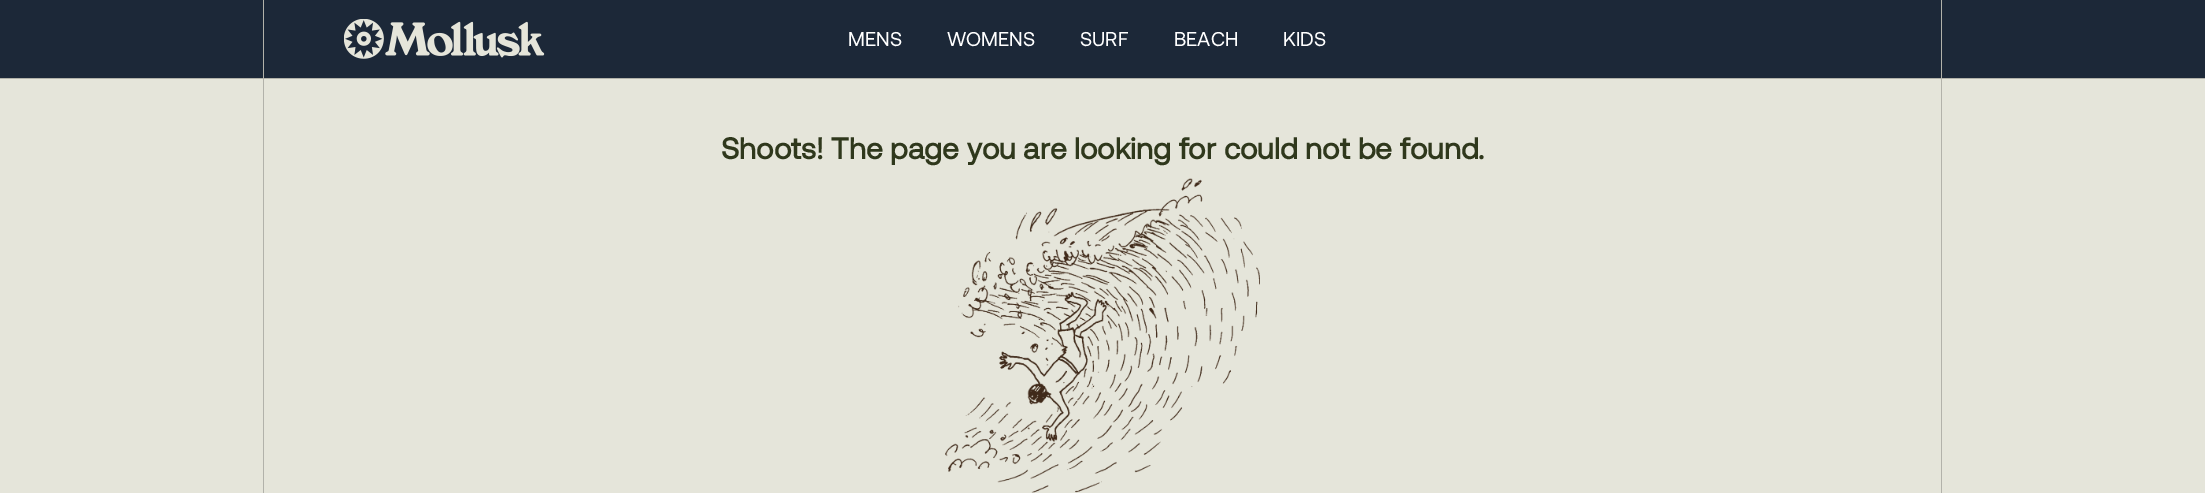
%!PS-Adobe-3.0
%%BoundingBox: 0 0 2205 493
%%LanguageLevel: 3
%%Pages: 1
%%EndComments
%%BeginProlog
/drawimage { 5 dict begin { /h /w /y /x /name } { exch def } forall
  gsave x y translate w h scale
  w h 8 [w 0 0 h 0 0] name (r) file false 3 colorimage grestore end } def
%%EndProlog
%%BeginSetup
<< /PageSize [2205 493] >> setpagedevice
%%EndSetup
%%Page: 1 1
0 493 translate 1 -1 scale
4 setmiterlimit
0.898 0.898 0.855 setrgbcolor
0 0 2205 493 rectfill
0.11 0.157 0.22 setrgbcolor
0 0 2205 78 rectfill
0.698 0.698 0.667 setrgbcolor
0 78 2205 1 rectfill
1941 0 1 78 rectfill
263 0 1 78 rectfill
(images/1.raw) 344 19 201 40 drawimage
1941 79 1 414 rectfill
263 79 1 414 rectfill
(images/2.raw) 945 178 315 315 drawimage
/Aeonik-Regular [20 0 0 -20 0 0] selectfont
1 setgray
848 46 moveto (MENS) show
947 46 moveto (WOMENS) show
1080 46 moveto (SURF) show
1174 46 moveto (BEACH) show
1283 46 moveto (KIDS) show
/Aeonik-Bold [30 0 0 -30 0 0] selectfont
0.184 0.22 0.11 setrgbcolor
721 159 moveto (Shoots! The page you are looking for could not be found.) show
showpage
%%EOF
